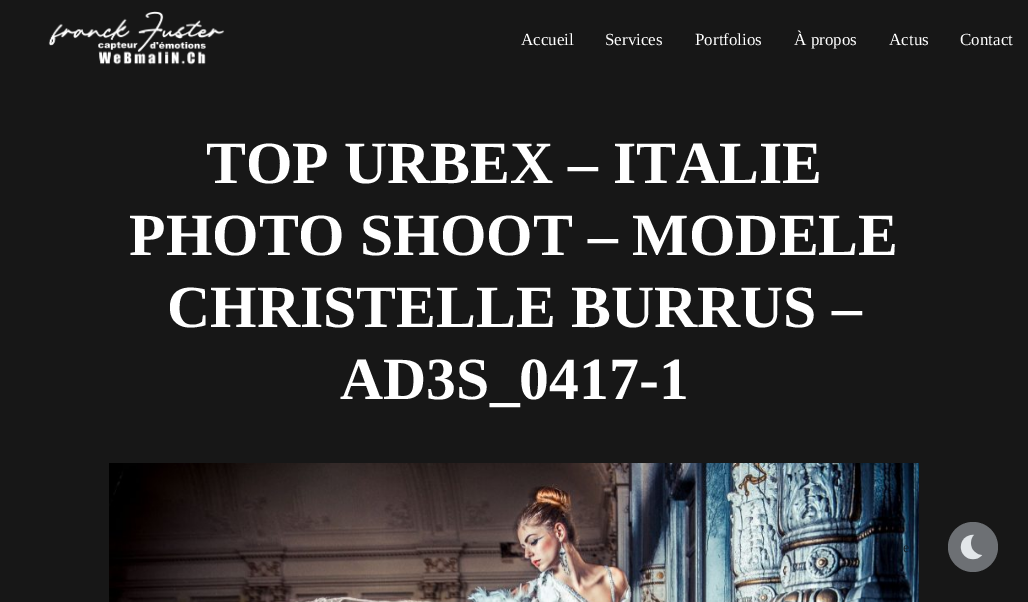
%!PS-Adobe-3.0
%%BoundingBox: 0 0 1028 602
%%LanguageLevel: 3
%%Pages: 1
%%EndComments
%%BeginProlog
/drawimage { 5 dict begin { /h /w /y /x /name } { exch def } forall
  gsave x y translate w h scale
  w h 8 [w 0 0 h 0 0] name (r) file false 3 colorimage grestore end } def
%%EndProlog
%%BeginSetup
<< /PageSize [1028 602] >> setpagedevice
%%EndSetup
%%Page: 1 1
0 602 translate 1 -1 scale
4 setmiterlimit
0.09 setgray
0 0 1028 602 rectfill
(images/1.raw) 48 11 177 54 drawimage
(images/2.raw) 109 463 810 139 drawimage
0.427 0.439 0.455 setrgbcolor
newpath 973 547 25 0 360 arc closepath fill
(images/3.raw) 960 534 23 26 drawimage
/LiberationSerif-Regular [17 0 0 -17 0 0] selectfont
1 setgray
521 45 moveto (Accueil) show
605 45 moveto (Services) show
695 45 moveto (Portfolios) show
794 45 moveto (À propos) show
889 45 moveto (Actus) show
960 45 moveto (Contact) show
/LiberationSerif-Bold [59.8 0 0 -59.8 0 0] selectfont
206 183 moveto (TOP URBEX – ITALIE) show
129 255 moveto (PHOTO SHOOT – MODELE) show
167 327 moveto (CHRISTELLE BURRUS –) show
340 399 moveto (AD3S_0417-1) show
/LiberationSerif-Regular [14 0 0 -14 0 0] selectfont
0.082 0.114 0.145 setrgbcolor
903 552 moveto (e) show
showpage
%%EOF
